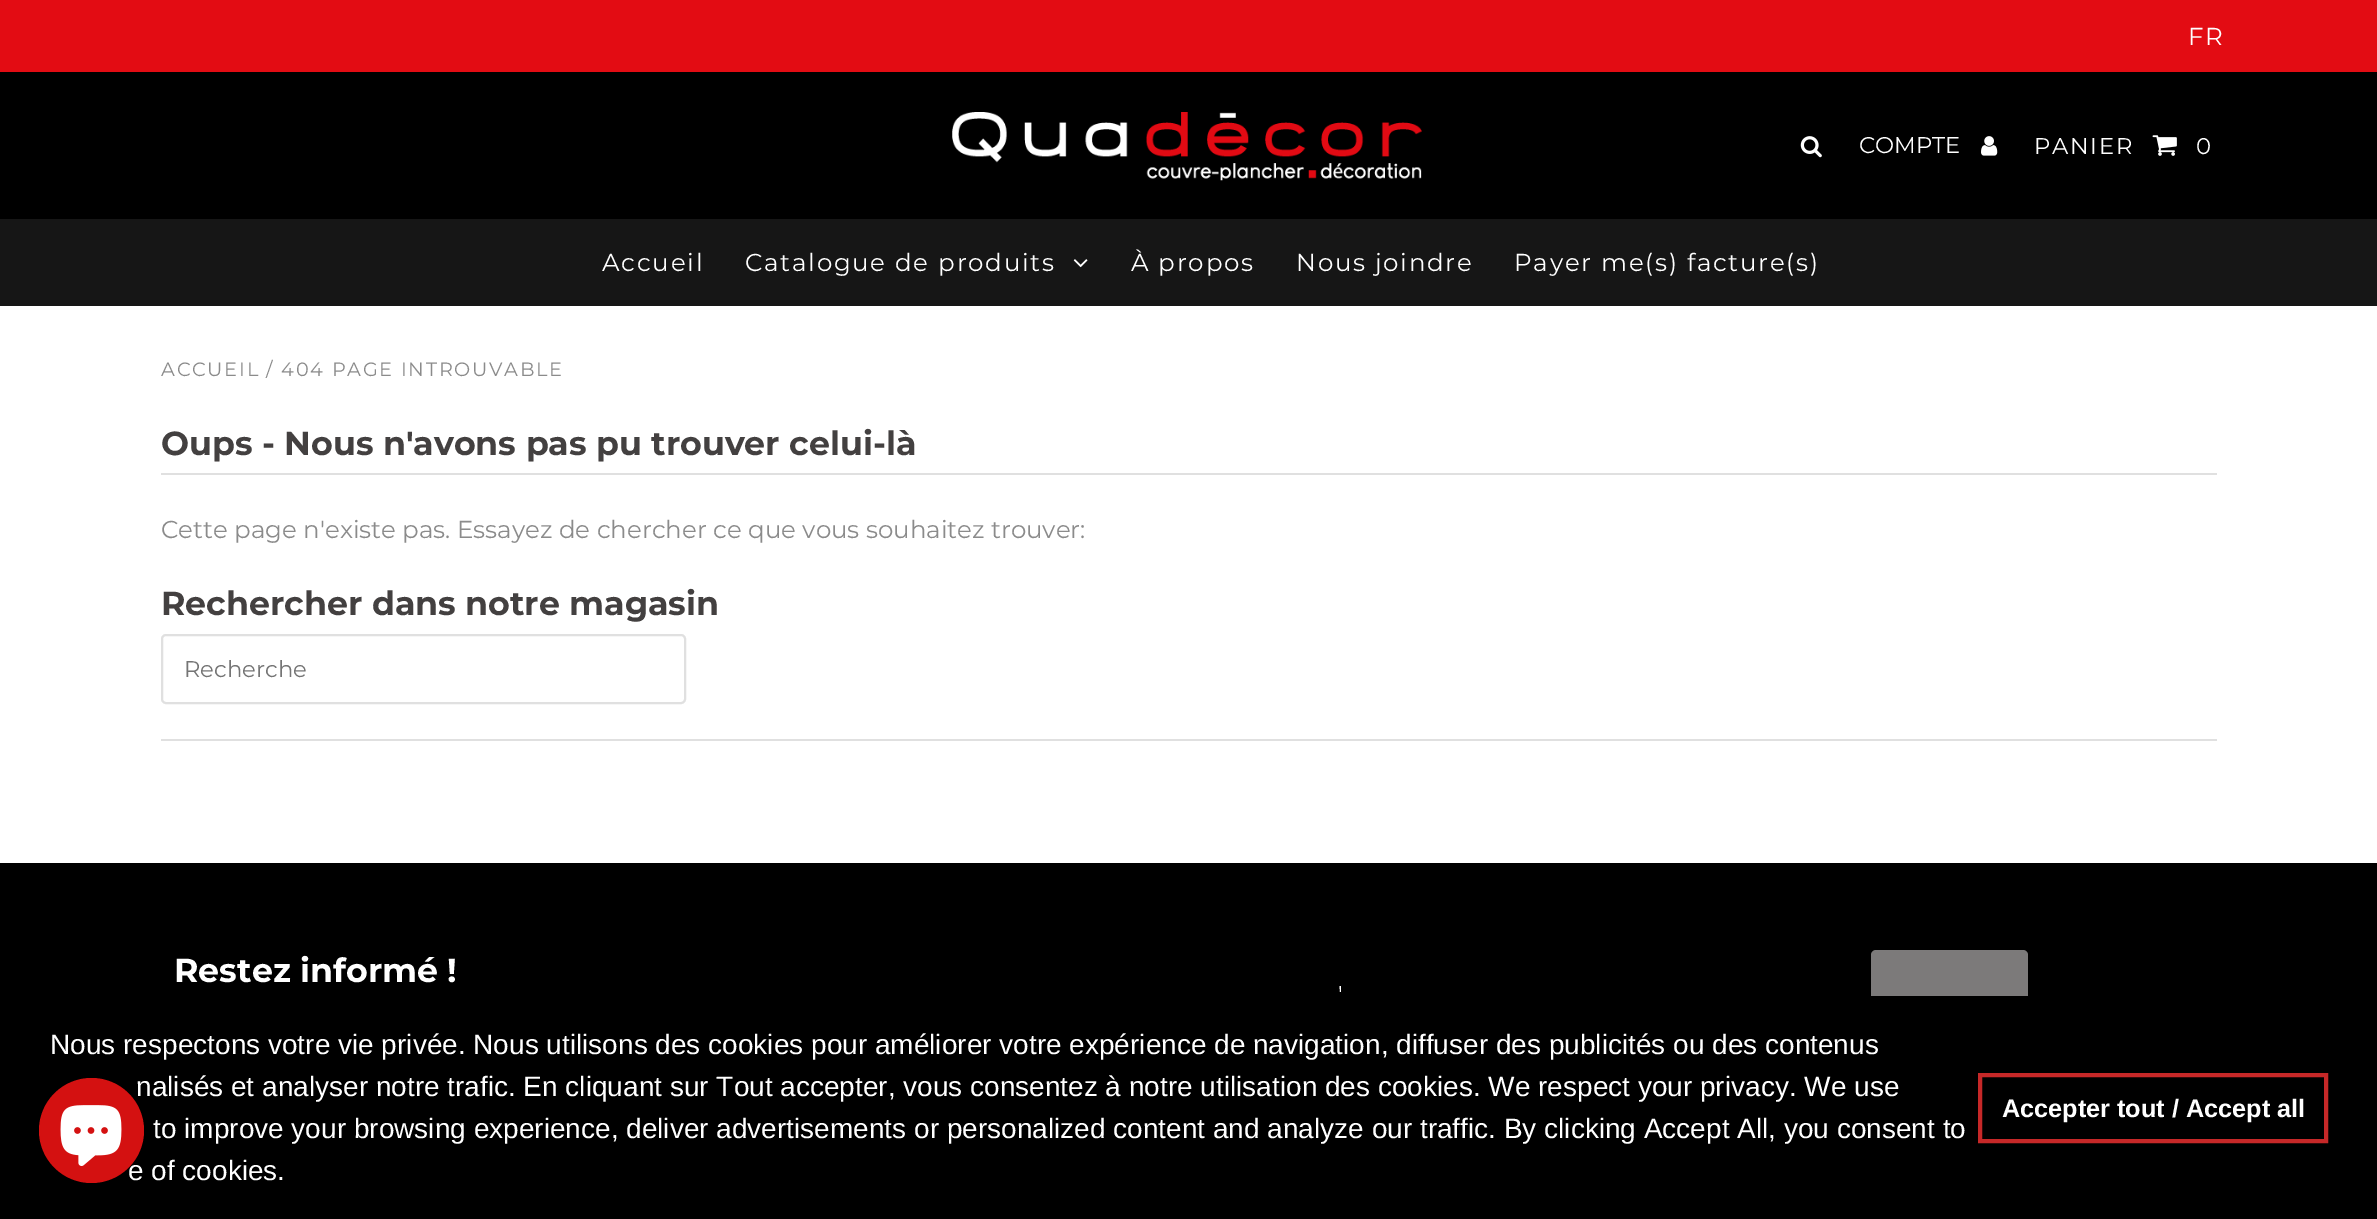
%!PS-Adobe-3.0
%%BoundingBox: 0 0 2377 1219
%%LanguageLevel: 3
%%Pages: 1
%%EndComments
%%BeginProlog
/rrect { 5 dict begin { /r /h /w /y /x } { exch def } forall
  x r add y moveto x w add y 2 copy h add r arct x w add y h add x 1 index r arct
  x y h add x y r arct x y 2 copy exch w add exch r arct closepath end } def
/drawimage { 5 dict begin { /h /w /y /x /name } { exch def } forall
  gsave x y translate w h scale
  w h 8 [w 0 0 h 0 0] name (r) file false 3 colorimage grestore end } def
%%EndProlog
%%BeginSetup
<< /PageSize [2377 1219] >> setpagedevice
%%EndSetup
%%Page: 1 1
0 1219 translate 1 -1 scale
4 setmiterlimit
1 setgray
0 0 2377 1219 rectfill
0 setgray
0 72 2377 147 rectfill
0.89 0.047 0.075 setrgbcolor
0 0 2377 72 rectfill
(images/1.raw) 952 112 470 69 drawimage
(images/2.raw) 1800 136 22 22 drawimage
(images/3.raw) 1981 136 17 20 drawimage
(images/4.raw) 2152 135 25 21 drawimage
0.086 setgray
0 219 2377 87 rectfill
(images/5.raw) 1073 259 15 9 drawimage
0.878 setgray
161 473 2056 2 rectfill
161 739 2056 2 rectfill
2 setlinewidth
162 635 523 68 4 rrect stroke
0 setgray
0 863 2377 133 rectfill
0.486 0.478 0.478 setrgbcolor
1871 950 157 88 5 rrect fill
0 setgray
0 996 2377 223 rectfill
0.776 0.157 0.157 setrgbcolor
4 setlinewidth
1980 1075 346 66 rectstroke
/Montserrat-Regular [24.5 0 0 -24.5 0 0] selectfont
1 setgray
2188 45 moveto 1.75 0 (FR) ashow
/Montserrat-Regular [22.75 0 0 -22.75 0 0] selectfont
1859 153 moveto (COMPTE) show
2034 154 moveto 1.75 0 (PANIER) ashow
2196 154 moveto 1.75 0 (0) ashow
/Montserrat-Regular [24.5 0 0 -24.5 0 0] selectfont
602 271 moveto 1.75 0 (Accueil) ashow
745 271 moveto 1.75 0 (Catalogue de produits) ashow
1131 271 moveto 1.75 0 (À propos) ashow
1296 271 moveto 1.75 0 (Nous joindre) ashow
1514 271 moveto 1.75 0 (Payer me\(s\) facture\(s\)) ashow
/Montserrat-Regular [19.25 0 0 -19.25 0 0] selectfont
0.545 setgray
161 376 moveto 1.75 0 (ACCUEIL / 404 PAGE INTROUVABLE) ashow
/Montserrat-Bold [33.25 0 0 -33.25 0 0] selectfont
0.263 0.251 0.251 setrgbcolor
161 455 moveto (Oups - Nous n'avons pas pu trouver celui-là) show
/Montserrat-Regular [24.5 0 0 -24.5 0 0] selectfont
0.545 setgray
161 538 moveto (Cette page n'existe pas. Essayez de chercher ce que vous souhaitez trouver:) show
/Montserrat-Bold [33.25 0 0 -33.25 0 0] selectfont
0.263 0.251 0.251 setrgbcolor
161 615 moveto (Rechercher dans notre magasin) show
/Montserrat-Regular [22.75 0 0 -22.75 0 0] selectfont
0.459 setgray
184 677 moveto (Recherche) show
/Montserrat-Bold [33.25 0 0 -33.25 0 0] selectfont
1 setgray
174 982 moveto (Restez informé !) show
/Montserrat-Regular [22.75 0 0 -22.75 0 0] selectfont
1338 1002 moveto (') show
/LiberationSans-Regular [28 0 0 -28 0 0] selectfont
50 1054 moveto (Nous respectons votre vie privée. Nous utilisons des cookies pour améliorer votre expérience de navigation, diffuser des publicités ou des contenus) show
136 1096 moveto (nalisés et analyser notre trafic. En cliquant sur Tout accepter, vous consentez à notre utilisation des cookies. We respect your privacy. We use) show
153 1138 moveto (to improve your browsing experience, deliver advertisements or personalized content and analyze our traffic. By clicking Accept All, you consent to) show
128 1180 moveto (e of cookies.) show
/LiberationSans-Bold [25.25 0 0 -25.25 0 0] selectfont
2002 1117 moveto (Accepter tout / Accept all) show
0.831 0.067 0.067 setrgbcolor
newpath 91.5 1130.5 52.5 0 360 arc closepath fill
(images/6.raw) 60 1105 62 61 drawimage
showpage
%%EOF
